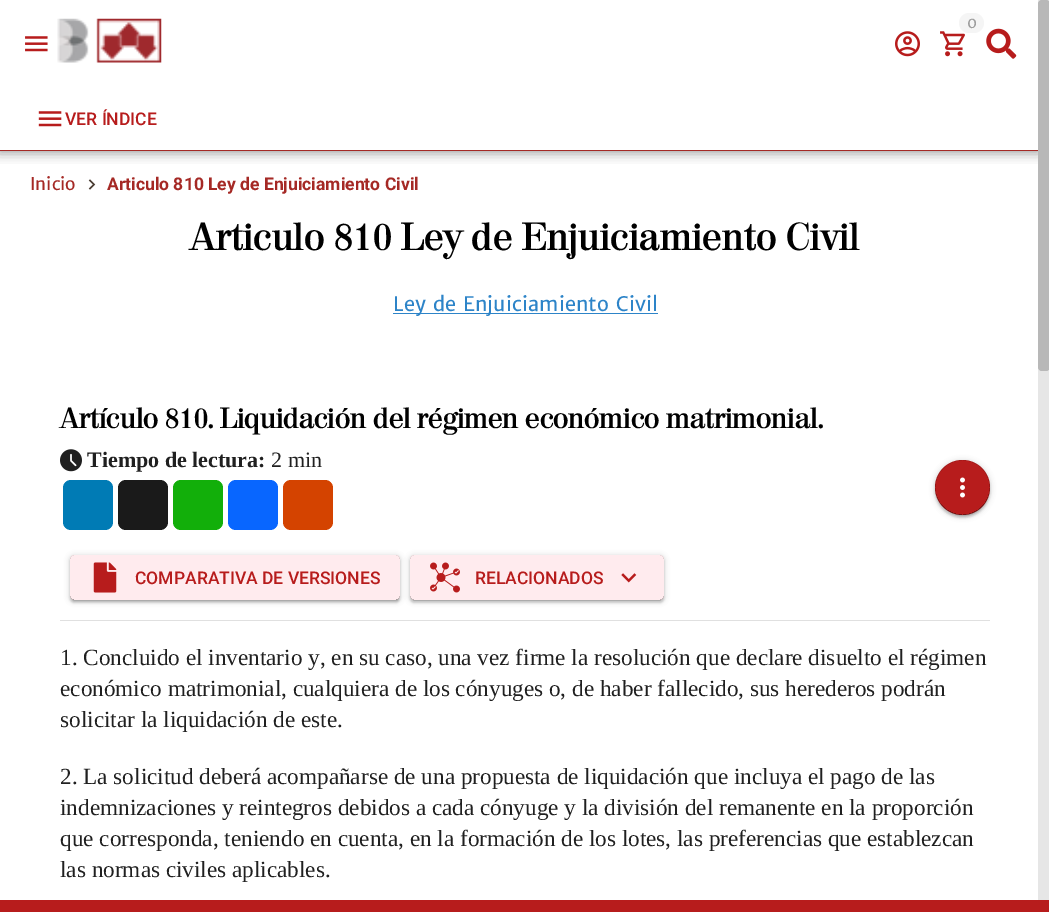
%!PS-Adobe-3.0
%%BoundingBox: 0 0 1049 912
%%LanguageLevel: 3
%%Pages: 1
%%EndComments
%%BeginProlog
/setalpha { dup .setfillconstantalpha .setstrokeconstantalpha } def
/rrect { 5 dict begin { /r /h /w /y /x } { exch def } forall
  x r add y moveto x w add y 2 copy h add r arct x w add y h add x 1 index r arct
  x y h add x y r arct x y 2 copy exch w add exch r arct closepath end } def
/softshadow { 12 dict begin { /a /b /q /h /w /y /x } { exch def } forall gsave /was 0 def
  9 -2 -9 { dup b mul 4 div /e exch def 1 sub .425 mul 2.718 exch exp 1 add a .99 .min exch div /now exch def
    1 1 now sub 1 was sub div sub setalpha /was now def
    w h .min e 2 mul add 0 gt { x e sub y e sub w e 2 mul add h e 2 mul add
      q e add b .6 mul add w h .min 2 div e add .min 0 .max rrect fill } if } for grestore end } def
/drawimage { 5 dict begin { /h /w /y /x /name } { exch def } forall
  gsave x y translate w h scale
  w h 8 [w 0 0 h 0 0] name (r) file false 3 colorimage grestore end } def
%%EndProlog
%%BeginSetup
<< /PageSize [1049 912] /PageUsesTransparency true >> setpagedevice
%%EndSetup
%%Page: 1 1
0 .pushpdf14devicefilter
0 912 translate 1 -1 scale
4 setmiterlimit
1 setgray
0 0 1049 912 rectfill
0.902 setgray
1038 0 11 900 rectfill
0.647 0.161 0.145 setrgbcolor
0 150 1038 1 rectfill
(images/1.raw) 57 18 105 45 drawimage
(images/2.raw) 940 31 25 26 drawimage
0.961 setgray
959 13 25 20 10 rrect fill
(images/3.raw) 895 31 25 26 drawimage
(images/4.raw) 986 28 31 31 drawimage
(images/5.raw) 25 36 23 16 drawimage
(images/6.raw) 38 111 24 16 drawimage
0.722 setgray
1038 0 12 371 4 rrect fill
gsave
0 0 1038 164 rectclip
newpath 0 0 moveto 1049 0 lineto 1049 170 lineto 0 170 lineto closepath 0 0 moveto 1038 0 lineto 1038 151 lineto 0 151 lineto closepath eoclip newpath
0 setgray
0 0 1038 151 0 6 0.24 softshadow
grestore
gsave
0 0 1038 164 rectclip
newpath 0 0 moveto 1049 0 lineto 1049 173 lineto 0 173 lineto closepath 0 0 moveto 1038 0 lineto 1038 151 lineto 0 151 lineto closepath eoclip newpath
0 setgray
-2 -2 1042 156 0 6 0.2 softshadow
grestore
(images/7.raw) 88 179 8 11 drawimage
0.176 0.518 0.784 setrgbcolor
393 313 265 1 rectfill
(images/8.raw) 60 449 22 23 drawimage
0 0.482 0.71 setrgbcolor
63 480 50 50 8 rrect fill
0.102 setgray
118 480 50 50 8 rrect fill
0.071 0.686 0.039 setrgbcolor
173 480 50 50 8 rrect fill
0.031 0.4 1 setrgbcolor
228 480 50 50 8 rrect fill
0.831 0.263 0 setrgbcolor
283 480 50 50 8 rrect fill
0.718 0.11 0.11 setrgbcolor
newpath 962.5 487.5 27.5 0 360 arc closepath fill
gsave
newpath 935 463 moveto 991 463 lineto 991 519 lineto 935 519 lineto closepath 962.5 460 moveto 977.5 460 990 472.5 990 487.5 curveto 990 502.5 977.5 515 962.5 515 curveto 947.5 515 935 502.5 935 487.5 curveto 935 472.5 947.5 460 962.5 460 curveto closepath eoclip newpath
0 setgray
938 466 50 50 25 0.5 0.12 softshadow
grestore
gsave
newpath 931 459 moveto 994 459 lineto 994 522 lineto 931 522 lineto closepath 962.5 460 moveto 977.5 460 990 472.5 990 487.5 curveto 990 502.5 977.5 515 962.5 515 curveto 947.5 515 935 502.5 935 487.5 curveto 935 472.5 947.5 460 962.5 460 curveto closepath eoclip newpath
0 setgray
935 463 55 55 27.5 1 0.14 softshadow
grestore
gsave
newpath 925 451 moveto 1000 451 lineto 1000 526 lineto 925 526 lineto closepath 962.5 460 moveto 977.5 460 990 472.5 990 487.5 curveto 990 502.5 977.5 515 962.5 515 curveto 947.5 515 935 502.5 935 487.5 curveto 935 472.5 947.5 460 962.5 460 curveto closepath eoclip newpath
0 setgray
935 461 55 55 27.5 3 0.2 softshadow
grestore
(images/9.raw) 960 477 5 21 drawimage
1 0.922 0.933 setrgbcolor
70 555 330 45 4 rrect fill
gsave
newpath 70 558 moveto 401 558 lineto 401 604 lineto 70 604 lineto closepath 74 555 moveto 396 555 lineto 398 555 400 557 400 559 curveto 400 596 lineto 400 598 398 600 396 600 curveto 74 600 lineto 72 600 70 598 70 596 curveto 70 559 lineto 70 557 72 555 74 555 curveto closepath eoclip newpath
0 setgray
73 561 325 40 1 0.5 0.12 softshadow
grestore
gsave
newpath 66 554 moveto 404 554 lineto 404 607 lineto 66 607 lineto closepath 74 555 moveto 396 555 lineto 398 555 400 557 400 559 curveto 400 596 lineto 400 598 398 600 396 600 curveto 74 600 lineto 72 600 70 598 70 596 curveto 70 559 lineto 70 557 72 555 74 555 curveto closepath eoclip newpath
0 setgray
70 558 330 45 4 1 0.14 softshadow
grestore
gsave
newpath 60 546 moveto 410 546 lineto 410 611 lineto 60 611 lineto closepath 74 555 moveto 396 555 lineto 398 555 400 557 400 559 curveto 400 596 lineto 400 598 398 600 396 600 curveto 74 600 lineto 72 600 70 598 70 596 curveto 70 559 lineto 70 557 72 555 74 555 curveto closepath eoclip newpath
0 setgray
70 556 330 45 4 3 0.2 softshadow
grestore
(images/10.raw) 93 562 24 31 drawimage
410 555 254 45 4 rrect fill
gsave
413 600 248 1 rectclip
0 setgray
413 561 248 40 1 0.5 0.12 softshadow
grestore
gsave
newpath 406 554 moveto 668 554 lineto 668 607 lineto 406 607 lineto closepath 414 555 moveto 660 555 lineto 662 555 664 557 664 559 curveto 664 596 lineto 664 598 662 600 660 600 curveto 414 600 lineto 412 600 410 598 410 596 curveto 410 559 lineto 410 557 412 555 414 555 curveto closepath eoclip newpath
0 setgray
410 558 254 45 4 1 0.14 softshadow
grestore
gsave
newpath 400 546 moveto 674 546 lineto 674 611 lineto 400 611 lineto closepath 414 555 moveto 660 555 lineto 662 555 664 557 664 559 curveto 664 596 lineto 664 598 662 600 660 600 curveto 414 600 lineto 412 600 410 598 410 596 curveto 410 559 lineto 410 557 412 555 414 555 curveto closepath eoclip newpath
0 setgray
410 556 254 45 4 3 0.2 softshadow
grestore
(images/11.raw) 430 562 30 31 drawimage
(images/12.raw) 621 573 16 10 drawimage
0.878 setgray
60 620 930 1 rectfill
0.718 0.11 0.11 setrgbcolor
0 900 1049 12 rectfill
/MerriweatherSans-Regular [15 0 0 -15 0 0] selectfont
0.62 setgray
967 28 moveto (0) show
/Roboto-Medium [17.5 0 0 -17.5 0 0] selectfont
0.718 0.11 0.11 setrgbcolor
65 125 moveto (VER ÍNDICE) show
/MerriweatherSans-Regular [17.5 0 0 -17.5 0 0] selectfont
0.647 0.161 0.145 setrgbcolor
30 190 moveto (Inicio) show
/Roboto-Bold [17.5 0 0 -17.5 0 0] selectfont
107 190 moveto (Articulo 810 Ley de Enjuiciamiento Civil) show
/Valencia-Bold [38 0 0 -38 0 0] selectfont
0 setgray
190 250 moveto (Articulo 810 Ley de Enjuiciamiento Civil) show
/MerriweatherSans-Regular [20 0 0 -20 0 0] selectfont
0.176 0.518 0.784 setrgbcolor
393 311 moveto 0.2 0 (Ley de Enjuiciamiento Civil) ashow
/Valencia-Bold [28.35 0 0 -28.35 0 0] selectfont
0 setgray
60 428 moveto -0.25 0 (Artículo 810. Liquidación del régimen económico matrimonial.) ashow
/LiberationSerif-Bold [22 0 0 -22 0 0] selectfont
0.125 setgray
87 467 moveto (Tiempo de lectura:) show
/LiberationSerif-Regular [22 0 0 -22 0 0] selectfont
271 467 moveto (2 min) show
/Roboto-Medium [17.5 0 0 -17.5 0 0] selectfont
0.718 0.11 0.11 setrgbcolor
135 584 moveto (COMPARATIVA DE VERSIONES) show
475 584 moveto (RELACIONADOS) show
/LiberationSerif-Regular [23.2 0 0 -23.2 0 0] selectfont
0.125 setgray
60 665 moveto (1. Concluido el inventario y, en su caso, una vez firme la resolución que declare disuelto el régimen) show
60 696 moveto (económico matrimonial, cualquiera de los cónyuges o, de haber fallecido, sus herederos podrán) show
60 727 moveto (solicitar la liquidación de este.) show
60 784 moveto (2. La solicitud deberá acompañarse de una propuesta de liquidación que incluya el pago de las) show
60 815 moveto (indemnizaciones y reintegros debidos a cada cónyuge y la división del remanente en la proporción) show
60 846 moveto (que corresponda, teniendo en cuenta, en la formación de los lotes, las preferencias que establezcan) show
60 877 moveto (las normas civiles aplicables.) show
.poppdf14devicefilter showpage
%%EOF
